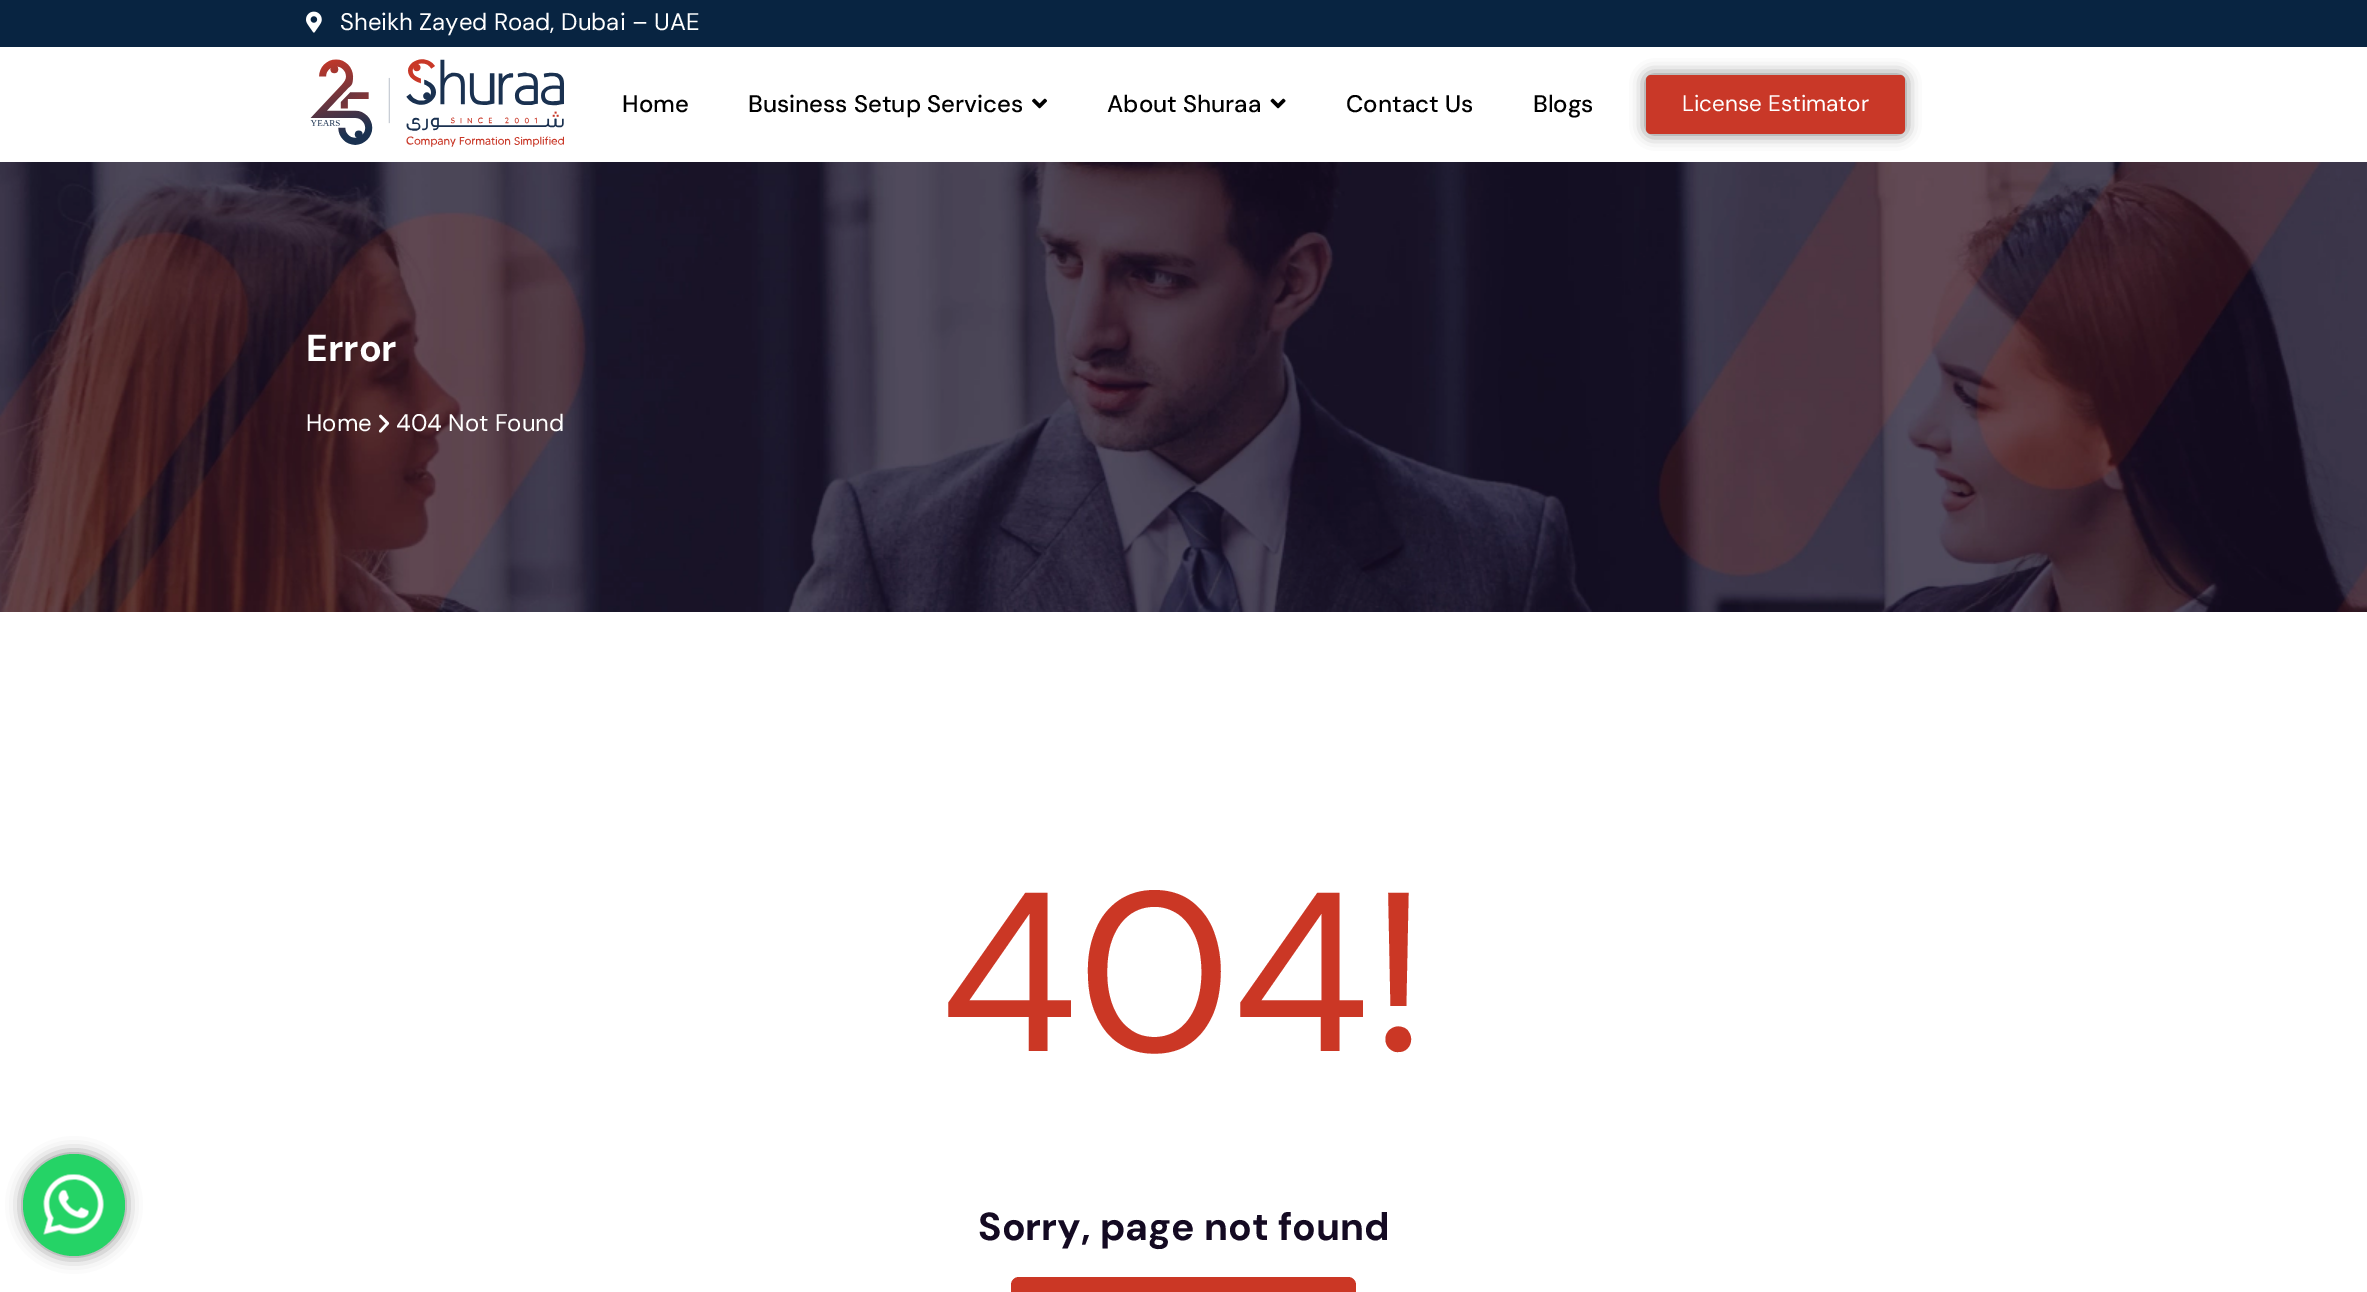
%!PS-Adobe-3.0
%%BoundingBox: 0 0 2367 1292
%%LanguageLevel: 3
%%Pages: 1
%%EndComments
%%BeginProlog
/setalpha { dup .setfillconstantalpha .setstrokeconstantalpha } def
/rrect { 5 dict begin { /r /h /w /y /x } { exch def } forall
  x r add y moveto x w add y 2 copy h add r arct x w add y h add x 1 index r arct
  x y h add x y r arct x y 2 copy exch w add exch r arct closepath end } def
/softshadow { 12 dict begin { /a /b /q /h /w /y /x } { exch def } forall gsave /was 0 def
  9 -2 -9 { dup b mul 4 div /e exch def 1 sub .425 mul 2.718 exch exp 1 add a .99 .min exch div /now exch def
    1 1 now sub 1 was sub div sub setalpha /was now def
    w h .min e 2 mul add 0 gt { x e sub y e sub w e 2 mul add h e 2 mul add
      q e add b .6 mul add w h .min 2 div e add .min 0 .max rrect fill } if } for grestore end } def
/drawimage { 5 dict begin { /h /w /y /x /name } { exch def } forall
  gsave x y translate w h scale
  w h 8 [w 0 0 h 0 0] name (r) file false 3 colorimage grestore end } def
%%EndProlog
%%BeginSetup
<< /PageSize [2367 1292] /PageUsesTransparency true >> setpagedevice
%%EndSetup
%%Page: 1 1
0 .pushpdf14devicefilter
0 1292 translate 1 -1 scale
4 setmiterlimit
1 setgray
0 0 2367 1292 rectfill
0.031 0.141 0.255 setrgbcolor
0 0 2367 47 rectfill
(images/1.raw) 306 11 16 22 drawimage
(images/2.raw) 310 59 254 88 drawimage
(images/3.raw) 1032 98 15 11 drawimage
(images/4.raw) 1270 98 16 11 drawimage
0 setgray
1646 75 259 59 5 7.5 0.53 softshadow
0.788 0.22 0.157 setrgbcolor
1646 75 259 59 5 rrect fill
0 setgray
23 1154 102 102 51 8 0.5 softshadow
0.145 0.827 0.4 setrgbcolor
newpath 74 1205 51 0 360 arc closepath fill
(images/5.raw) 43 1174 61 61 drawimage
(images/6.raw) 0 162 2367 450 drawimage
(images/7.raw) 378 414 12 19 drawimage
0.796 0.216 0.145 setrgbcolor
1011 1277 345 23 8 rrect fill
/DMSans-Regular [24 0 0 -24 0 0] selectfont
1 setgray
340 30 moveto (Sheikh Zayed Road, Dubai – UAE) show
/DMSans-Medium [24 0 0 -24 0 0] selectfont
0 setgray
622 112 moveto (Home) show
748 112 moveto (Business Setup Services) show
1107 112 moveto (About Shuraa) show
1346 112 moveto (Contact Us) show
1533 112 moveto (Blogs) show
/DMSans-Regular [22.5 0 0 -22.5 0 0] selectfont
1 setgray
1682 111 moveto (License Estimator) show
/DMSans-Bold [37.5 0 0 -37.5 0 0] selectfont
306 361 moveto (Error) show
/DMSans-Regular [24 0 0 -24 0 0] selectfont
306 431 moveto (Home) show
396 431 moveto (404 Not Found) show
/DMSans-Regular [226.5 0 0 -226.5 0 0] selectfont
0.796 0.216 0.145 setrgbcolor
940 1051 moveto (404!) show
/DMSans-Bold [39 0 0 -39 0 0] selectfont
0.078 0.039 0.133 setrgbcolor
978 1240 moveto (Sorry, page not found) show
.poppdf14devicefilter showpage
%%EOF
